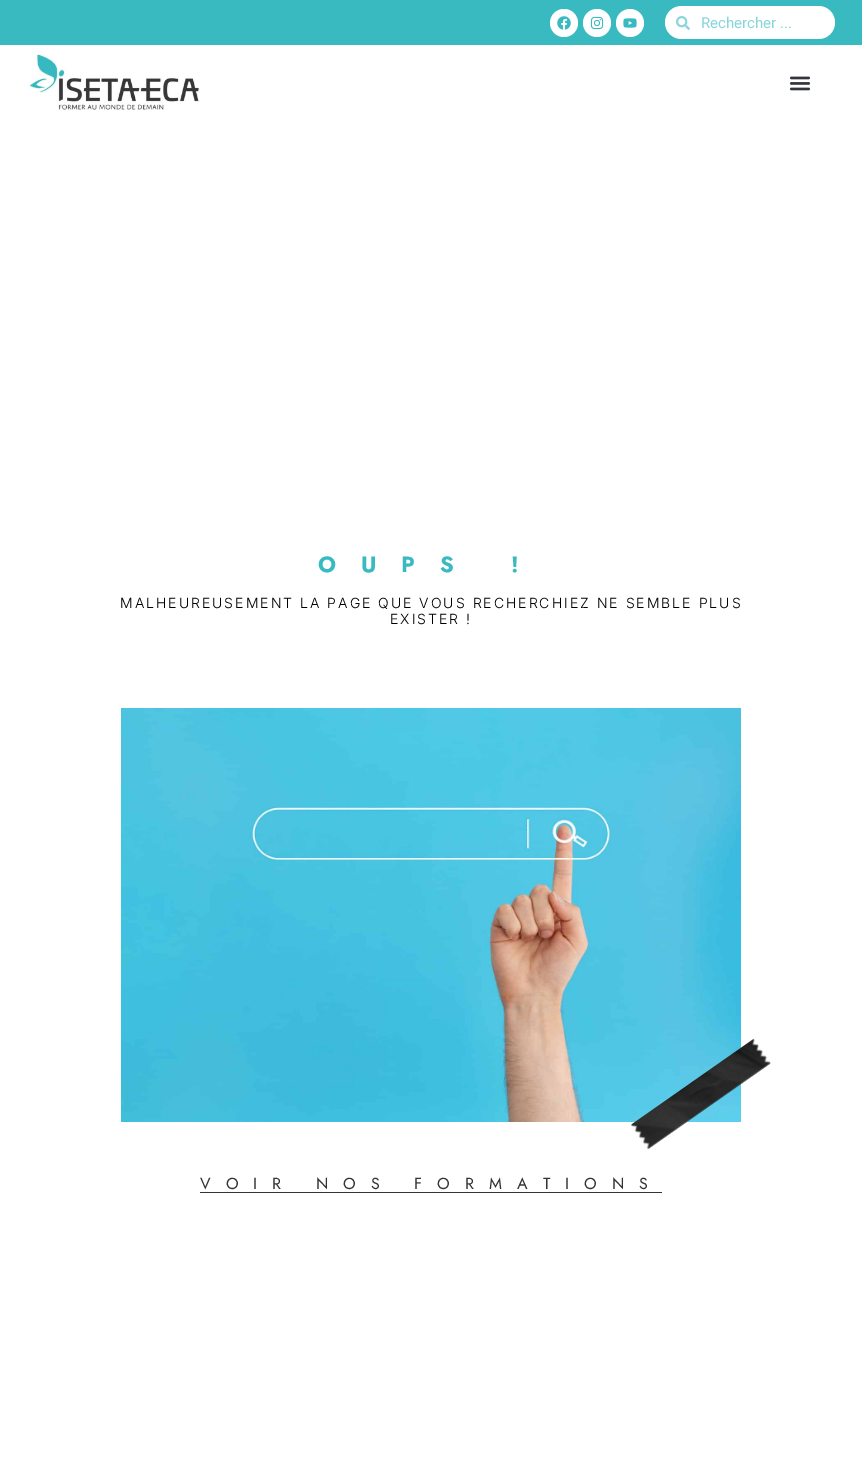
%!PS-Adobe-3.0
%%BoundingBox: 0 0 862 1467
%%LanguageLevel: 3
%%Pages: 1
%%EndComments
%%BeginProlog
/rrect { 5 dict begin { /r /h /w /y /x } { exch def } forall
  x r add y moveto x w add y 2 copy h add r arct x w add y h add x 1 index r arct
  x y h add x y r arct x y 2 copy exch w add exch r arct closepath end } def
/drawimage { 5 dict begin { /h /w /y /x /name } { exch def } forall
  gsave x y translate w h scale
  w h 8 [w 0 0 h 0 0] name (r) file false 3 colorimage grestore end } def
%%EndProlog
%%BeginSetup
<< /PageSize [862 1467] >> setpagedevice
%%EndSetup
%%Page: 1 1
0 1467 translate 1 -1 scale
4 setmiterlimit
1 setgray
0 0 862 1467 rectfill
0.224 0.729 0.757 setrgbcolor
0 0 862 45 rectfill
1 setgray
newpath 564 23 14 0 360 arc closepath fill
(images/1.raw) 557 16 14 14 drawimage
newpath 597 23 14 0 360 arc closepath fill
(images/2.raw) 590 16 14 14 drawimage
newpath 630 23 14 0 360 arc closepath fill
(images/3.raw) 623 18 14 10 drawimage
665 6 170 33 16.5 rrect fill
(images/4.raw) 676 16 14 14 drawimage
(images/5.raw) 29 54 171 56 drawimage
(images/6.raw) 789 76 22 15 drawimage
(images/7.raw) 121 708 620 414 drawimage
(images/8.raw) 631 1038 140 112 drawimage
0.216 0.2 0.2 setrgbcolor
200 1192 462 1 rectfill
/Roboto-Regular [15 0 0 -15 0 0] selectfont
0.533 0.839 0.855 setrgbcolor
701 28 moveto (Rechercher ...) show
/Jost-Bold [22 0 0 -22 0 0] selectfont
0.224 0.729 0.757 setrgbcolor
318 572 moveto 25 0 (OUPS !) ashow
/Inter-Light [14 0 0 -14 0 0] selectfont
0 setgray
120 608 moveto 2 0 (MALHEUREUSEMENT LA PAGE QUE VOUS RECHERCHIEZ NE SEMBLE PLUS) ashow
390 624 moveto 2 0 (EXISTER !) ashow
/Jost-Regular [16 0 0 -16 0 0] selectfont
0.216 0.2 0.2 setrgbcolor
200 1189 moveto 15 0 (VOIR NOS FORMATIONS) ashow
showpage
%%EOF
